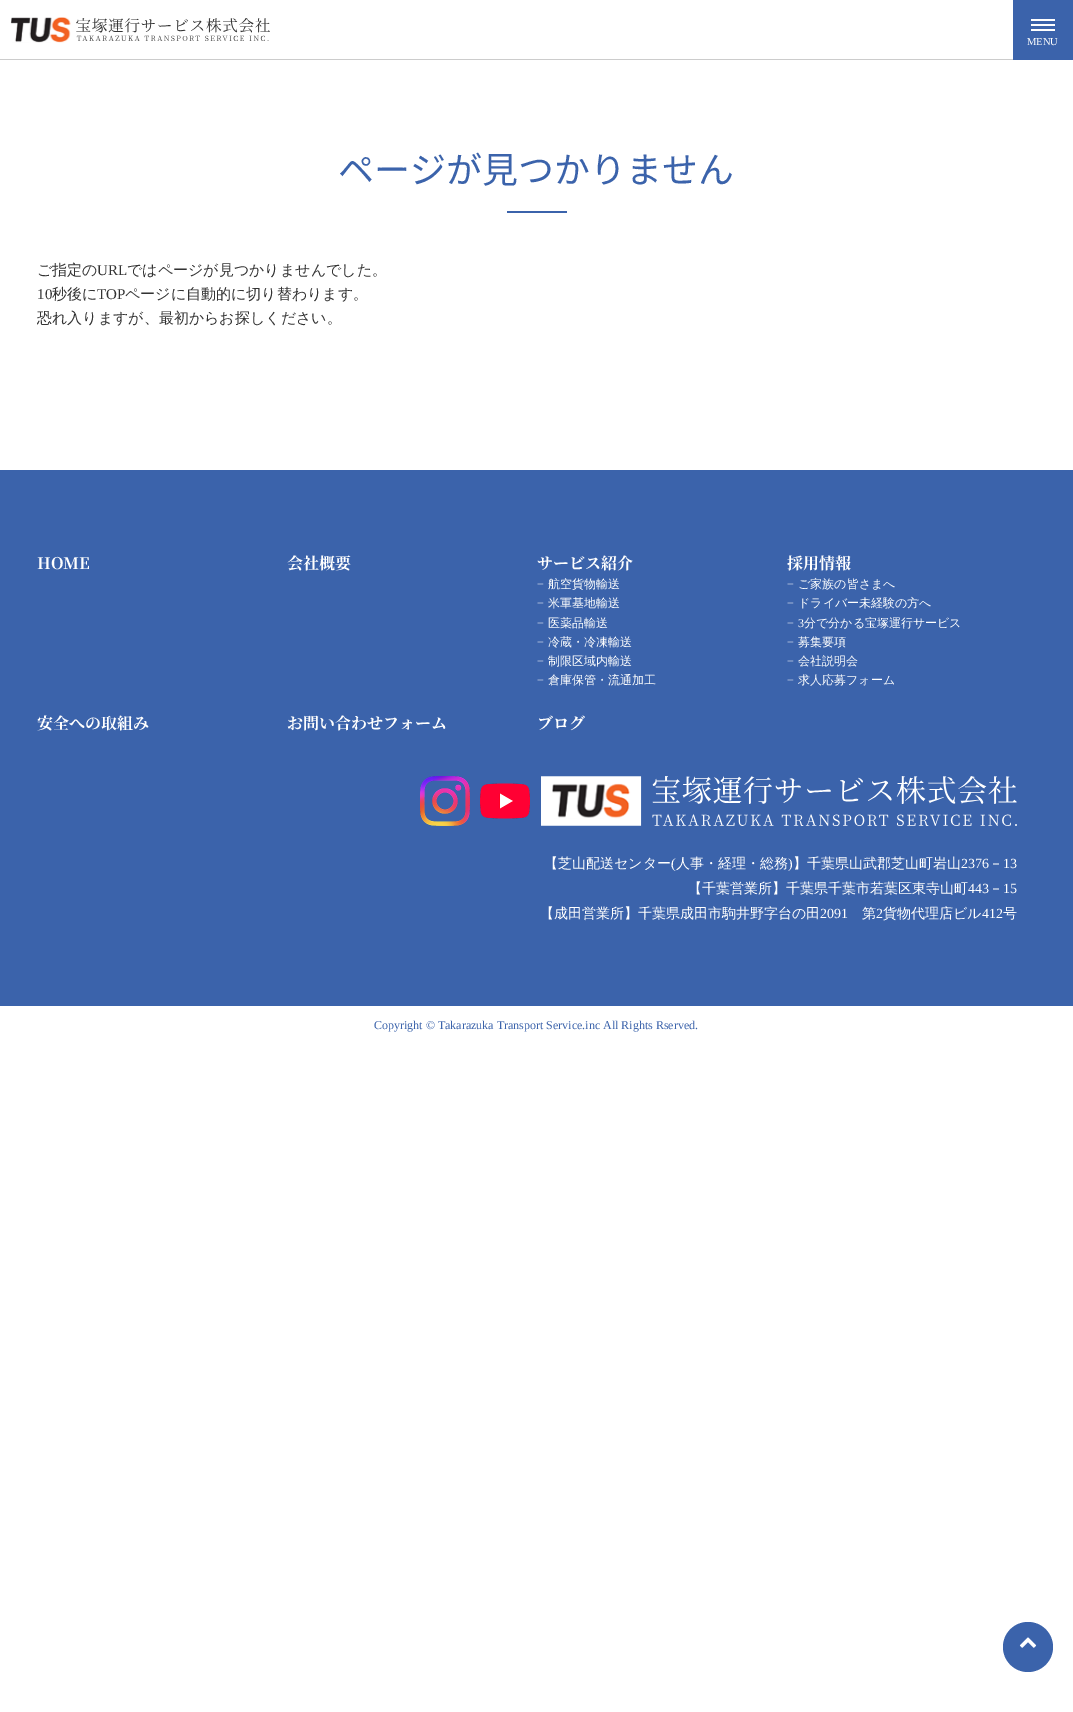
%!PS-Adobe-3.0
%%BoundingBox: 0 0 1073 1712
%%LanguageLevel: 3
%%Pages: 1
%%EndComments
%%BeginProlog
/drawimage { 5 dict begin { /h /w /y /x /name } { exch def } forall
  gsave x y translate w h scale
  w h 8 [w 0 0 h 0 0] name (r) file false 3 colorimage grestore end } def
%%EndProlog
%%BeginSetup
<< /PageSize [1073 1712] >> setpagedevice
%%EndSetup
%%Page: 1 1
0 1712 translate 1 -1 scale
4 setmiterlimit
1 setgray
0 0 1073 1712 rectfill
0.8 setgray
0 59 1013 1 rectfill
(images/1.raw) 10 17 260 26 drawimage
0.231 0.388 0.671 setrgbcolor
1013 0 60 60 rectfill
1 setgray
1031 24 24 2 rectfill
1031 19 24 2 rectfill
1031 29 24 2 rectfill
0.231 0.388 0.671 setrgbcolor
507 211 60 2 rectfill
0 470 1073 536 rectfill
(images/2.raw) 420 776 50 50 drawimage
(images/3.raw) 480 783 50 36 drawimage
(images/4.raw) 541 776 476 50 drawimage
newpath 1028 1647 25 0 360 arc closepath fill
(images/5.raw) 1019 1637 18 11 drawimage
/LiberationSerif-Regular [10.5 0 0 -10.5 0 0] selectfont
1 setgray
1027 45 moveto (MENU) show
/NotoSansJP-Regular [36 0 0 -36 0 0] selectfont
0.231 0.388 0.671 setrgbcolor
338 183 moveto (ページが見つかりません) show
/WenQuanYiZenHei-Medium [15 0 0 -15 0 0] selectfont
0.2 setgray
37 275 moveto (ご指定の) show
/LiberationSerif-Regular [15 0 0 -15 0 0] selectfont
97 275 moveto (URL) show
/WenQuanYiZenHei-Medium [15 0 0 -15 0 0] selectfont
127 275 moveto (ではページが見つかりませんでした。) show
/LiberationSerif-Regular [15 0 0 -15 0 0] selectfont
37 299 moveto (10) show
/WenQuanYiZenHei-Medium [15 0 0 -15 0 0] selectfont
52 299 moveto (秒後に) show
/LiberationSerif-Regular [15 0 0 -15 0 0] selectfont
97 299 moveto (TOP) show
/WenQuanYiZenHei-Medium [15 0 0 -15 0 0] selectfont
125 299 moveto (ページに自動的に切り替わります。) show
37 323 moveto (恐れ入りますが、最初からお探しください。) show
/NotoSerifJP-Bold [16 0 0 -16 0 0] selectfont
1 setgray
37 569 moveto (HOME) show
287 569 moveto (会社概要) show
537 569 moveto (サービス紹介) show
/LiberationSerif-Regular [12 0 0 -12 0 0] selectfont
537 588 moveto (−) show
/WenQuanYiZenHei-Medium [12 0 0 -12 0 0] selectfont
548 588 moveto (航空貨物輸送) show
/LiberationSerif-Regular [12 0 0 -12 0 0] selectfont
537 607 moveto (−) show
/WenQuanYiZenHei-Medium [12 0 0 -12 0 0] selectfont
548 607 moveto (米軍基地輸送) show
/LiberationSerif-Regular [12 0 0 -12 0 0] selectfont
537 627 moveto (−) show
/WenQuanYiZenHei-Medium [12 0 0 -12 0 0] selectfont
548 627 moveto (医薬品輸送) show
/LiberationSerif-Regular [12 0 0 -12 0 0] selectfont
537 646 moveto (−) show
/WenQuanYiZenHei-Medium [12 0 0 -12 0 0] selectfont
548 646 moveto (冷蔵・冷凍輸送) show
/LiberationSerif-Regular [12 0 0 -12 0 0] selectfont
537 665 moveto (−) show
/WenQuanYiZenHei-Medium [12 0 0 -12 0 0] selectfont
548 665 moveto (制限区域内輸送) show
/LiberationSerif-Regular [12 0 0 -12 0 0] selectfont
537 684 moveto (−) show
/WenQuanYiZenHei-Medium [12 0 0 -12 0 0] selectfont
548 684 moveto (倉庫保管・流通加工) show
/NotoSerifJP-Bold [16 0 0 -16 0 0] selectfont
787 569 moveto (採用情報) show
/LiberationSerif-Regular [12 0 0 -12 0 0] selectfont
787 588 moveto (−) show
/WenQuanYiZenHei-Medium [12 0 0 -12 0 0] selectfont
798 588 moveto (ご家族の皆さまへ) show
/LiberationSerif-Regular [12 0 0 -12 0 0] selectfont
787 607 moveto (−) show
/WenQuanYiZenHei-Medium [12 0 0 -12 0 0] selectfont
798 607 moveto (ドライバー未経験の方へ) show
/LiberationSerif-Regular [12 0 0 -12 0 0] selectfont
787 627 moveto (−) show
798 627 moveto (3) show
/WenQuanYiZenHei-Medium [12 0 0 -12 0 0] selectfont
804 627 moveto (分で分かる宝塚運行サービス) show
/LiberationSerif-Regular [12 0 0 -12 0 0] selectfont
787 646 moveto (−) show
/WenQuanYiZenHei-Medium [12 0 0 -12 0 0] selectfont
798 646 moveto (募集要項) show
/LiberationSerif-Regular [12 0 0 -12 0 0] selectfont
787 665 moveto (−) show
/WenQuanYiZenHei-Medium [12 0 0 -12 0 0] selectfont
798 665 moveto (会社説明会) show
/LiberationSerif-Regular [12 0 0 -12 0 0] selectfont
787 684 moveto (−) show
/WenQuanYiZenHei-Medium [12 0 0 -12 0 0] selectfont
798 684 moveto (求人応募フォーム) show
/NotoSerifJP-Bold [16 0 0 -16 0 0] selectfont
37 729 moveto (安全への取組み) show
287 729 moveto (お問い合わせフォーム) show
537 729 moveto (ブログ) show
/WenQuanYiZenHei-Medium [14 0 0 -14 0 0] selectfont
544 868 moveto (【芝山配送センター) show
/LiberationSerif-Regular [14 0 0 -14 0 0] selectfont
671 868 moveto (\() show
/WenQuanYiZenHei-Medium [14 0 0 -14 0 0] selectfont
676 868 moveto (人事・経理・総務) show
/LiberationSerif-Regular [14 0 0 -14 0 0] selectfont
788 868 moveto (\)) show
/WenQuanYiZenHei-Medium [14 0 0 -14 0 0] selectfont
793 868 moveto (】千葉県山武郡芝山町岩山) show
/LiberationSerif-Regular [14 0 0 -14 0 0] selectfont
961 868 moveto (2376) show
/WenQuanYiZenHei-Medium [14 0 0 -14 0 0] selectfont
989 868 moveto (－) show
/LiberationSerif-Regular [14 0 0 -14 0 0] selectfont
1003 868 moveto (13) show
/WenQuanYiZenHei-Medium [14 0 0 -14 0 0] selectfont
688 893 moveto (【千葉営業所】千葉県千葉市若葉区東寺山町) show
/LiberationSerif-Regular [14 0 0 -14 0 0] selectfont
968 893 moveto (443) show
/WenQuanYiZenHei-Medium [14 0 0 -14 0 0] selectfont
989 893 moveto (－) show
/LiberationSerif-Regular [14 0 0 -14 0 0] selectfont
1003 893 moveto (15) show
/WenQuanYiZenHei-Medium [14 0 0 -14 0 0] selectfont
540 918 moveto (【成田営業所】千葉県成田市駒井野字台の田) show
/LiberationSerif-Regular [14 0 0 -14 0 0] selectfont
820 918 moveto (2091) show
/WenQuanYiZenHei-Medium [14 0 0 -14 0 0] selectfont
862 918 moveto (第) show
/LiberationSerif-Regular [14 0 0 -14 0 0] selectfont
876 918 moveto (2) show
/WenQuanYiZenHei-Medium [14 0 0 -14 0 0] selectfont
883 918 moveto (貨物代理店ビル) show
/LiberationSerif-Regular [14 0 0 -14 0 0] selectfont
982 918 moveto (412) show
/WenQuanYiZenHei-Medium [14 0 0 -14 0 0] selectfont
1003 918 moveto (号) show
/LiberationSerif-Regular [12 0 0 -12 0 0] selectfont
0.231 0.388 0.671 setrgbcolor
374 1029 moveto (Copyright © Takarazuka Transport Service.inc All Rights Rserved.) show
showpage
%%EOF
